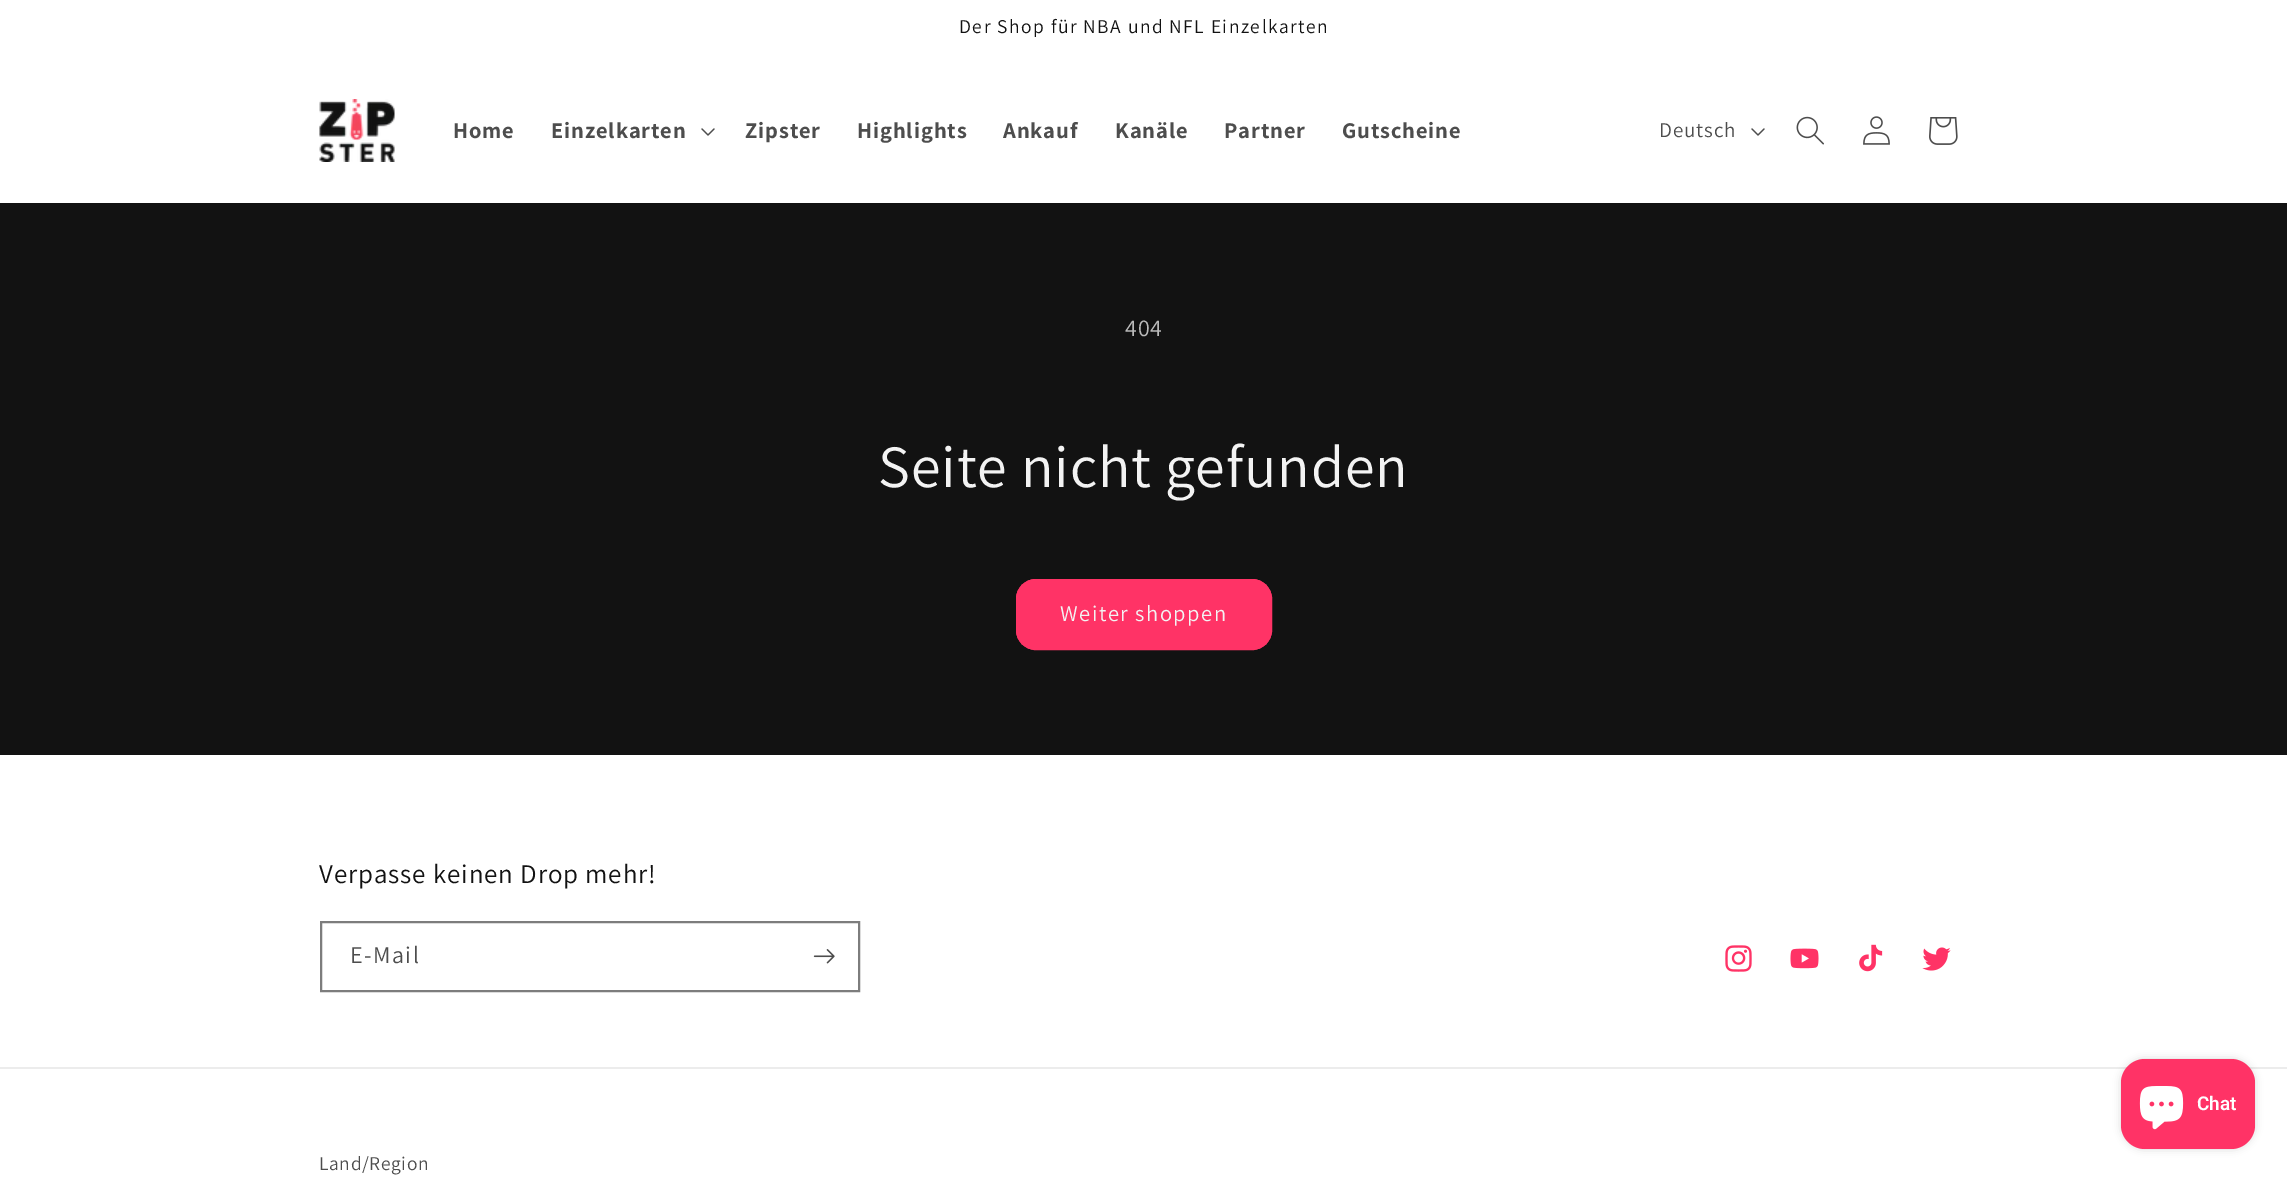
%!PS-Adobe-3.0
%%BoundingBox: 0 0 2287 1180
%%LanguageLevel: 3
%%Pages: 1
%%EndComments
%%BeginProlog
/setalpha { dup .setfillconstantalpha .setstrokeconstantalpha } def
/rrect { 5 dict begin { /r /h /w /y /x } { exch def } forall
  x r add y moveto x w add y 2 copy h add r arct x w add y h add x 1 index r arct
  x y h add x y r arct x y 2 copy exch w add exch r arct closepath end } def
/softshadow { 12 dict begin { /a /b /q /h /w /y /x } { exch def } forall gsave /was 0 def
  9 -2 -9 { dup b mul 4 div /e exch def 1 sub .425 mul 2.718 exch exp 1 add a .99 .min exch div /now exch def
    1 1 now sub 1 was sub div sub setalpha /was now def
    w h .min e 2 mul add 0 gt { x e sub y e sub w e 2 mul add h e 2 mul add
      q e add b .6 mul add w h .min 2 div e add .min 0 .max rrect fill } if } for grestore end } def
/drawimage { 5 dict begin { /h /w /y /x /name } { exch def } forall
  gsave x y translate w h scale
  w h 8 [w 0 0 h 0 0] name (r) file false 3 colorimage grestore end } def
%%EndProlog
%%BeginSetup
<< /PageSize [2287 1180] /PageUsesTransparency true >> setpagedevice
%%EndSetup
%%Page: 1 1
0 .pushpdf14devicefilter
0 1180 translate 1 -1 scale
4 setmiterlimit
0.071 setgray
0 0 2287 1180 rectfill
1 setgray
0 0 2287 203 rectfill
(images/1.raw) 319 99 76 63 drawimage
(images/2.raw) 701 128 14 8 drawimage
(images/2.raw) 1751 128 14 8 drawimage
(images/3.raw) 1796 116 28 29 drawimage
(images/4.raw) 1863 116 27 29 drawimage
(images/5.raw) 1929 117 29 28 drawimage
1 0.2 0.4 setrgbcolor
1016 579 256 71 20 rrect fill
2 setlinewidth
1017 580 254 69 19 rrect stroke
1 setgray
0 755 2287 425 rectfill
0.49 setgray
321 922 538 69 rectstroke
(images/6.raw) 813 949 22 15 drawimage
(images/7.raw) 1725 945 27 27 drawimage
(images/8.raw) 1790 948 29 21 drawimage
(images/9.raw) 1859 944 24 28 drawimage
(images/10.raw) 1922 947 29 24 drawimage
0.925 setgray
0 1067 2287 2 rectfill
0 setgray
2121 1059 134 90 24 4 0.15 softshadow
1 0.2 0.4 setrgbcolor
2121 1059 134 90 24 rrect fill
(images/11.raw) 2139 1086 45 44 drawimage
/Assistant-Regular [19.5 0 0 -19.5 0 0] selectfont
0.071 setgray
959 33 moveto 1.5 0 (Der Shop für NBA und NFL Einzelkarten) ashow
/Assistant-Bold [22.5 0 0 -22.5 0 0] selectfont
0.302 setgray
453 138 moveto 0.9 0 (Home) ashow
551 138 moveto 0.9 0 (Einzelkarten) ashow
745 138 moveto 0.9 0 (Zipster) ashow
857 138 moveto 0.9 0 (Highlights) ashow
1003 138 moveto 0.9 0 (Ankauf) ashow
1115 138 moveto 0.9 0 (Kanäle) ashow
1224 138 moveto 0.9 0 (Partner) ashow
1342 138 moveto 0.9 0 (Gutscheine) ashow
/Assistant-Regular [21 0 0 -21 0 0] selectfont
1659 137 moveto 0.9 0 (Deutsch) ashow
/Assistant-Regular [24 0 0 -24 0 0] selectfont
0.733 setgray
1125 336 moveto 0.9 0 (404) ashow
/Assistant-Regular [60 0 0 -60 0 0] selectfont
0.953 setgray
878 487 moveto 0.9 0 (Seite nicht gefunden) ashow
/Assistant-Regular [22.5 0 0 -22.5 0 0] selectfont
1060 621 moveto 1.5 0 (Weiter shoppen) ashow
/Assistant-Regular [27 0 0 -27 0 0] selectfont
0.071 setgray
319 883 moveto 0.9 0 (Verpasse keinen Drop mehr!) ashow
/Assistant-Regular [24 0 0 -24 0 0] selectfont
0.302 setgray
350 963 moveto 1.5 0 (E-Mail) ashow
/Assistant-Regular [19.5 0 0 -19.5 0 0] selectfont
319 1170 moveto 0.6 0 (Land/Region) ashow
/Roboto-SemiBold [19 0 0 -19 0 0] selectfont
1 setgray
2197 1110 moveto (Chat) show
.poppdf14devicefilter showpage
%%EOF
